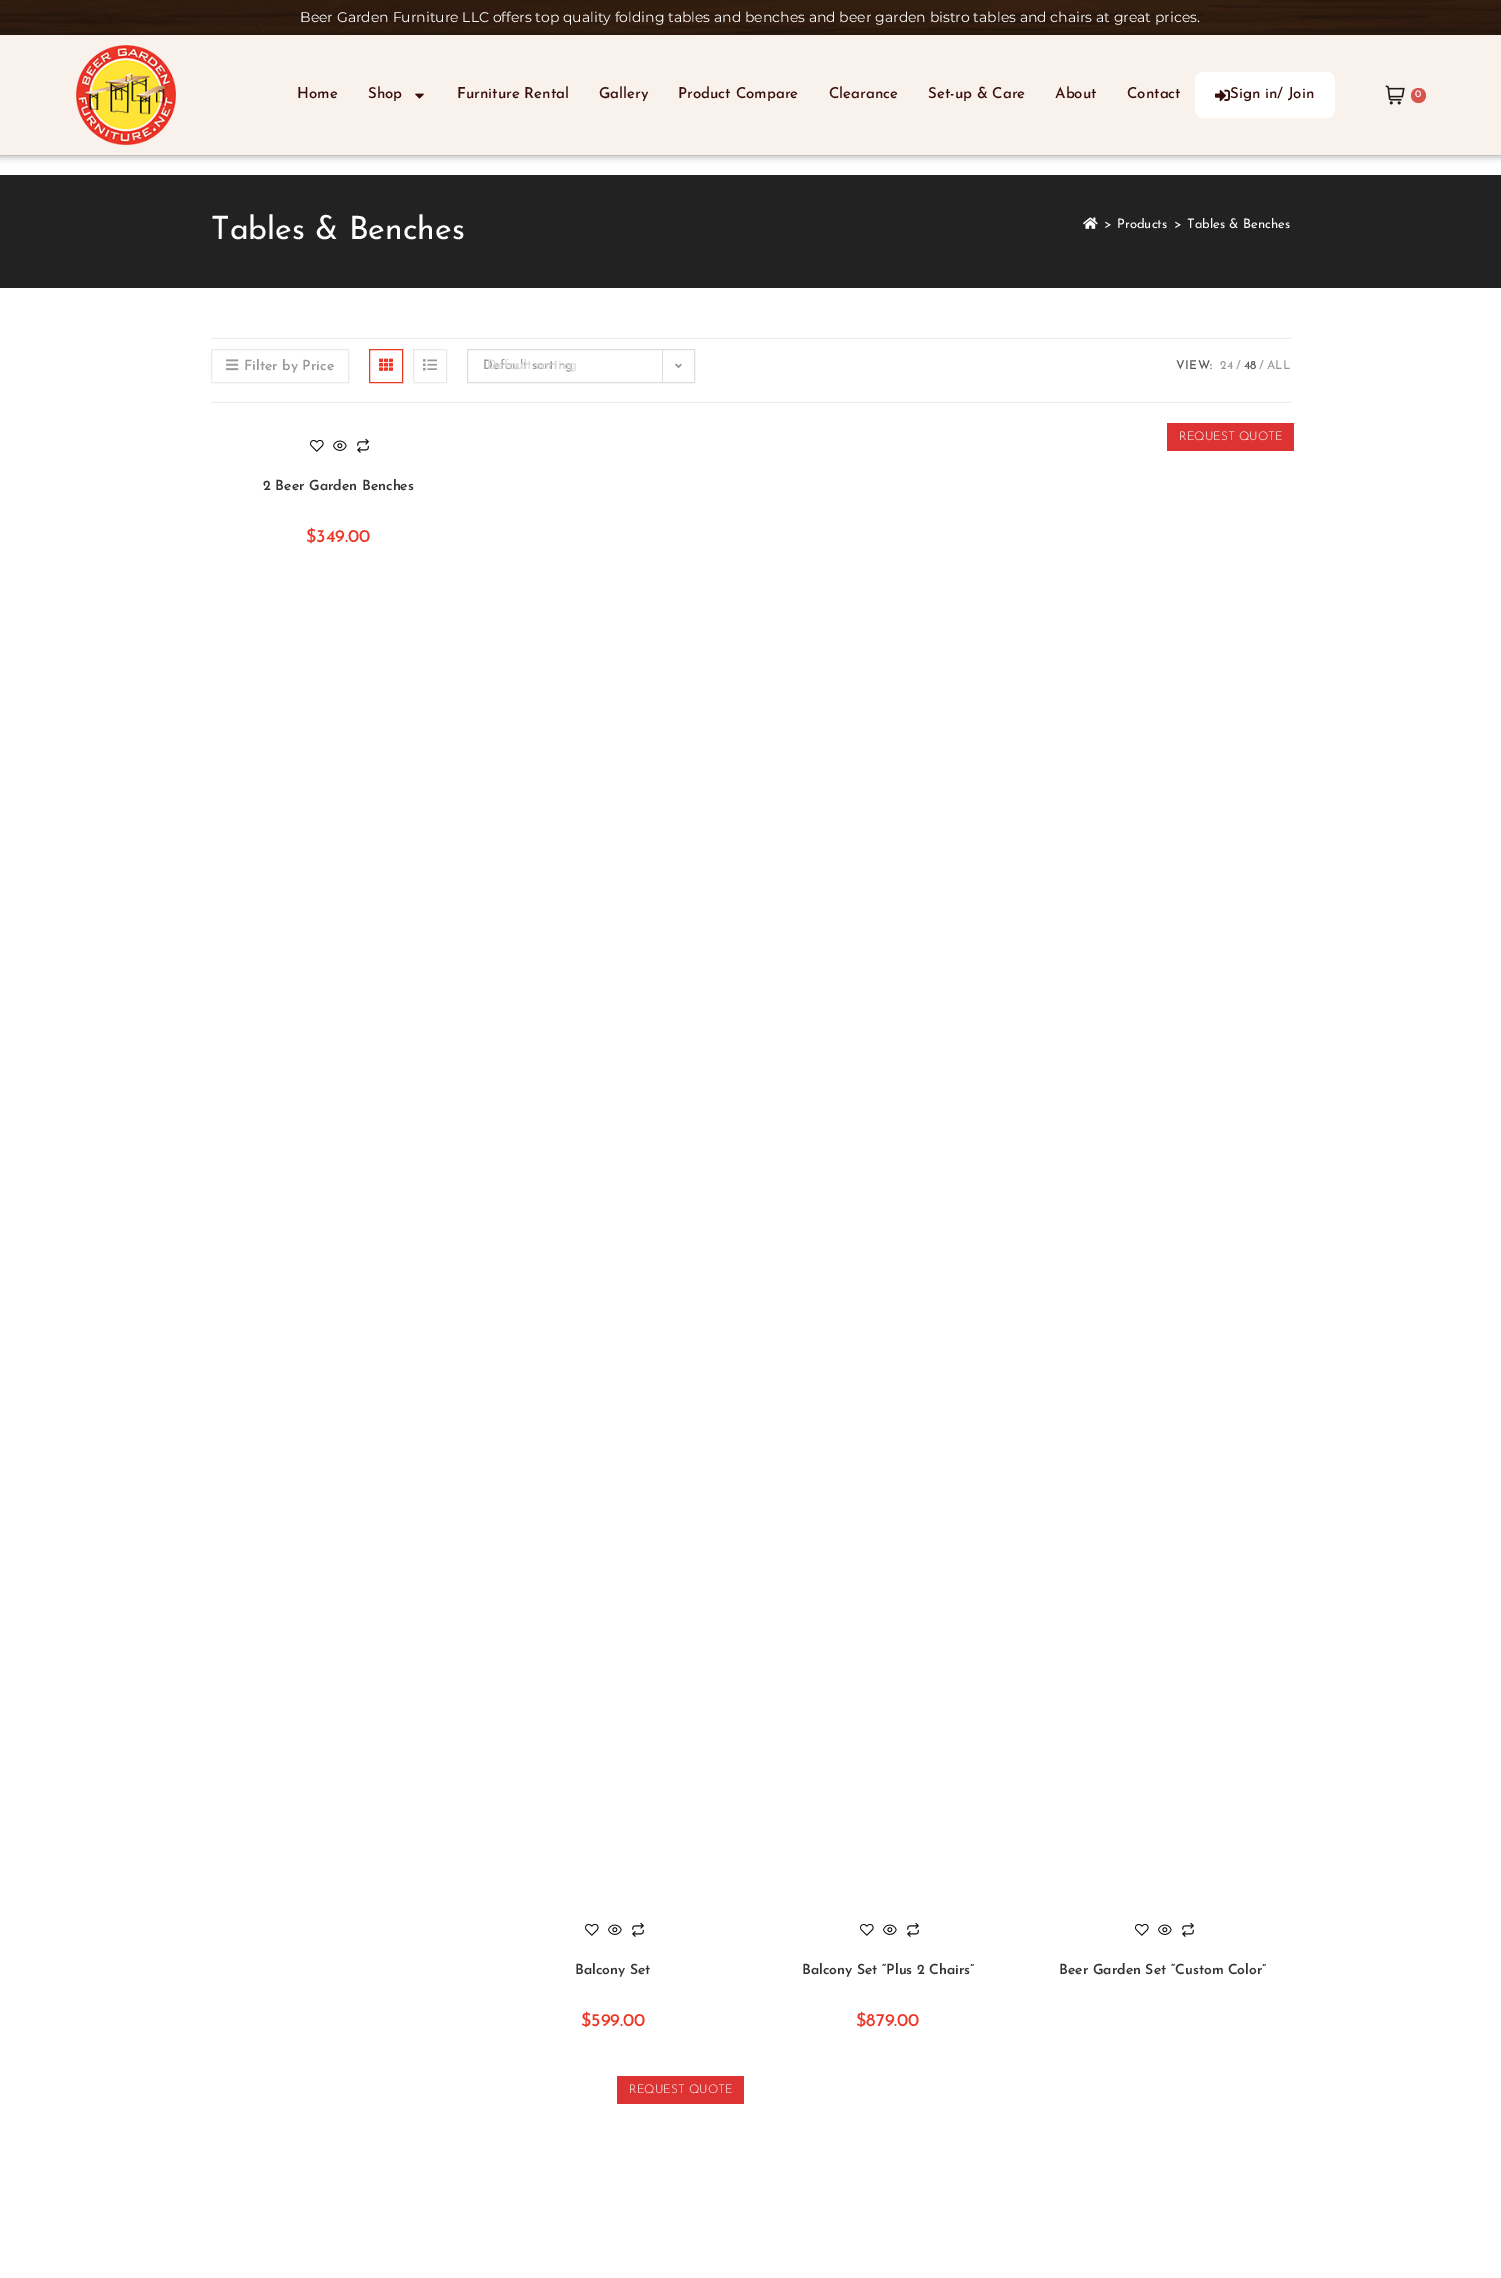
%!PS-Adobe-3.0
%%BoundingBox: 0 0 1501 2278
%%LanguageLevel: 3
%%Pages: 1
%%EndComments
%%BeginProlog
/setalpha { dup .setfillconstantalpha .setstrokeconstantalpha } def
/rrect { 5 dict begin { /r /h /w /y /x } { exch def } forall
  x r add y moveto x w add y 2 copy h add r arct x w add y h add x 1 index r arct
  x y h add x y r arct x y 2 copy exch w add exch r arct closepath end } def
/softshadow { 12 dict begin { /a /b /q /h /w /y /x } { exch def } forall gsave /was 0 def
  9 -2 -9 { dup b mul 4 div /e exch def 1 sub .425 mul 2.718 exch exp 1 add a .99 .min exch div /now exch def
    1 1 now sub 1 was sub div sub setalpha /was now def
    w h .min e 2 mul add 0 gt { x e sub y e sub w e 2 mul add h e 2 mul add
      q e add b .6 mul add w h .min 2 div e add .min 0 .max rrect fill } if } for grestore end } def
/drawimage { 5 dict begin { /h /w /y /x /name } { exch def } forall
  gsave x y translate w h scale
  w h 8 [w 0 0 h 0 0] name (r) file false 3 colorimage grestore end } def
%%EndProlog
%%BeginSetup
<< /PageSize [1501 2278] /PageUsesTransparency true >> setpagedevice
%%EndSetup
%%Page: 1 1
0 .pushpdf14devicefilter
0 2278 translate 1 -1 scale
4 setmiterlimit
1 setgray
0 0 1501 2278 rectfill
(images/1.raw) 0 0 1501 35 drawimage
0 setgray
0 35 1501 120 0 4 0.5 softshadow
0.976 0.949 0.925 setrgbcolor
0 35 1501 120 rectfill
(images/2.raw) 76 45 100 100 drawimage
(images/3.raw) 415 93 9 6 drawimage
1 setgray
1195 72 140 46 8 rrect fill
(images/4.raw) 1215 89 15 13 drawimage
(images/5.raw) 1385 85 20 20 drawimage
0.851 0.325 0.31 setrgbcolor
newpath 1418.5 95.5 7.5 0 360 arc closepath fill
0.133 setgray
0 175 1501 113 rectfill
(images/6.raw) 1083 217 15 12 drawimage
0.918 setgray
211 338 1080 1 rectfill
211 402 1080 1 rectfill
211.5 349.5 137 33 rectstroke
(images/7.raw) 226 359 13 12 drawimage
0.925 0.22 0.149 setrgbcolor
369.5 349.5 33 33 rectstroke
(images/8.raw) 379 358 14 13 drawimage
0.918 setgray
413.5 349.5 33 33 rectstroke
(images/9.raw) 423 359 14 12 drawimage
0.867 setgray
467.5 349.5 227 33 rectstroke
662 350 1 32 rectfill
(images/10.raw) 675 363 7 5 drawimage
1 setgray
2 setlinewidth
newpath 682 364 moveto 686 368 lineto 690 364 lineto stroke
(images/11.raw) 310 440 14 12 drawimage
(images/12.raw) 333 440 14 11 drawimage
(images/13.raw) 357 438 12 15 drawimage
0.867 0.2 0.2 setrgbcolor
1167 423 127 28 rectfill
(images/11.raw) 1135 1924 14 12 drawimage
(images/12.raw) 1158 1924 14 11 drawimage
(images/13.raw) 1182 1922 12 15 drawimage
(images/11.raw) 585 1924 14 12 drawimage
(images/12.raw) 608 1924 14 11 drawimage
(images/13.raw) 632 1922 12 15 drawimage
(images/11.raw) 860 1924 14 12 drawimage
(images/12.raw) 883 1924 14 11 drawimage
(images/13.raw) 907 1922 12 15 drawimage
617 2076 127 28 rectfill
/Montserrat-Regular [14 0 0 -14 0 0] selectfont
1 setgray
300 22 moveto (Beer Garden Furniture LLC offers top quality folding tables and benches and beer garden bistro tables and chairs at great prices.) show
/JosefinSans-Medium [15 0 0 -15 0 0] selectfont
0.22 0.055 0.039 setrgbcolor
297 98 moveto (Home) show
368 98 moveto (Shop) show
457 98 moveto (Furniture Rental) show
599 98 moveto (Gallery) show
678 98 moveto (Product Compare) show
829 98 moveto (Clearance) show
928 98 moveto (Set-up & Care) show
1055 98 moveto (About) show
1127 98 moveto (Contact) show
1230 98 moveto (Sign in/ Join) show
/JosefinSans-Medium [10 0 0 -10 0 0] selectfont
1 setgray
1415 97 moveto (0) show
/JosefinSans-Regular [32 0 0 -32 0 0] selectfont
211 239 moveto (Tables & Benches) show
/JosefinSans-Regular [13 0 0 -13 0 0] selectfont
1104 228 moveto (>) show
1117 228 moveto (Products) show
1174 228 moveto (>) show
1187 228 moveto (Tables & Benches) show
/JosefinSans-SemiBold [14 0 0 -14 0 0] selectfont
0.6 setgray
244 370 moveto (Filter by Price) show
/JosefinSans-Medium [13 0 0 -13 0 0] selectfont
483 369 moveto (Default sorting) show
0.863 setgray
487 369 moveto (Default sorting) show
/JosefinSans-Medium [12 0 0 -12 0 0] selectfont
0.333 setgray
1176 369 moveto 0.5 0 (VIEW:) ashow
0.6 setgray
1220 369 moveto (24) show
1236 369 moveto (/) show
0.333 setgray
1244 369 moveto (48) show
0.6 setgray
1259 369 moveto (/) show
1267 369 moveto (ALL) show
/JosefinSans-SemiBold [14 0 0 -14 0 0] selectfont
0.2 setgray
263 490 moveto (2 Beer Garden Benches) show
/JosefinSans-Medium [18 0 0 -18 0 0] selectfont
0.925 0.216 0.149 setrgbcolor
306 542 moveto ($349.00) show
/JosefinSans-Light [12 0 0 -12 0 0] selectfont
1 setgray
1179 440 moveto (REQUEST QUOTE) show
/JosefinSans-SemiBold [14 0 0 -14 0 0] selectfont
0.2 setgray
1059 1974 moveto (Beer Garden Set “Custom Color”) show
575 1974 moveto (Balcony Set) show
/JosefinSans-Medium [18 0 0 -18 0 0] selectfont
0.925 0.216 0.149 setrgbcolor
581 2026 moveto ($599.00) show
/JosefinSans-SemiBold [14 0 0 -14 0 0] selectfont
0.2 setgray
802 1974 moveto (Balcony Set “Plus 2 Chairs”) show
/JosefinSans-Medium [18 0 0 -18 0 0] selectfont
0.925 0.216 0.149 setrgbcolor
856 2026 moveto ($879.00) show
/JosefinSans-Light [12 0 0 -12 0 0] selectfont
1 setgray
629 2093 moveto (REQUEST QUOTE) show
.poppdf14devicefilter showpage
%%EOF
